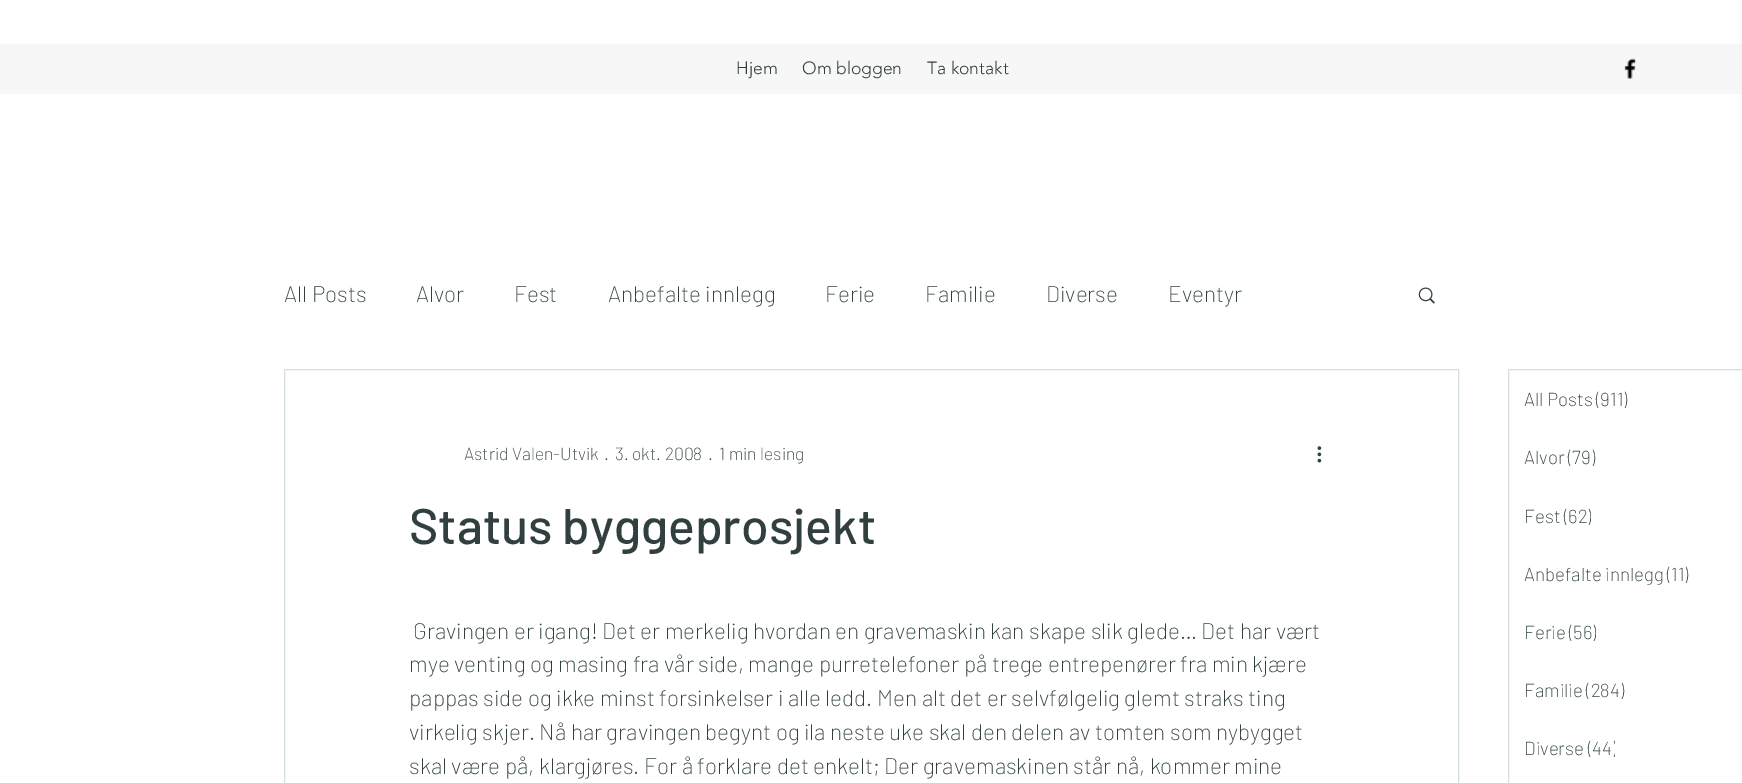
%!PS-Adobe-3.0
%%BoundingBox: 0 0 1742 783
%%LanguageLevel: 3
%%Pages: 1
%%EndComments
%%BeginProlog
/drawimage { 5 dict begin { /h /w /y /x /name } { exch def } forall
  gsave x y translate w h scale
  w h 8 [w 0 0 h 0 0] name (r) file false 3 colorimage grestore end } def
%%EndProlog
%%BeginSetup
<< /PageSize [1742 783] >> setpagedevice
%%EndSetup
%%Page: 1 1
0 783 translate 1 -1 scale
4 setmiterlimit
1 setgray
0 0 1742 783 rectfill
0.969 setgray
0 44 1742 50 rectfill
(images/1.raw) 1624 58 12 21 drawimage
(images/2.raw) 1418 287 17 17 drawimage
0.835 0.875 0.871 setrgbcolor
284.5 369.5 1174 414 rectstroke
(images/3.raw) 1317 446 5 17 drawimage
1508.5 369.5 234 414 rectstroke
/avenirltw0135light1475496-Light [17.5 0 0 -17.5 0 0] selectfont
0.192 0.251 0.247 setrgbcolor
736 74 moveto (Hjem) show
802 74 moveto (Om bloggen) show
927 74 moveto (Ta kontakt) show
/Barlow-ExtraLight [22.5 0 0 -22.5 0 0] selectfont
284 302 moveto (All Posts) show
416 302 moveto (Alvor) show
514 302 moveto (Fest) show
608 302 moveto (Anbefalte innlegg) show
825 302 moveto (Ferie) show
925 302 moveto (Familie) show
1046 302 moveto (Diverse) show
1168 302 moveto (Eventyr) show
/Barlow-ExtraLight [17.5 0 0 -17.5 0 0] selectfont
464 460 moveto (Astrid Valen-Utvik) show
606 460 moveto (·) show
615 460 moveto (3. okt. 2008) show
710 460 moveto (·) show
719 460 moveto (1 min lesing) show
/Barlow-Medium [50 0 0 -50 0 0] selectfont
409 544 moveto (Status byggeprosjekt) show
/Barlow-ExtraLight [22.5 0 0 -22.5 0 0] selectfont
413 639 moveto (Gravingen er igang! Det er merkelig hvordan en gravemaskin kan skape slik glede… Det har vært) show
409 672 moveto (mye venting og masing fra vår side, mange purretelefoner på trege entrepenører fra min kjære) show
409 706 moveto (pappas side og ikke minst forsinkelser i alle ledd. Men alt det er selvfølgelig glemt straks ting) show
409 740 moveto (virkelig skjer. Nå har gravingen begynt og ila neste uke skal den delen av tomten som nybygget) show
409 774 moveto (skal være på, klargjøres. For å forklare det enkelt; Der gravemaskinen står nå, kommer mine) show
/Barlow-ExtraLight [18.75 0 0 -18.75 0 0] selectfont
1524 406 moveto (All Posts \(911\)) show
1524 464 moveto (Alvor \(79\)) show
1524 523 moveto (Fest) show
gsave
1524 501 67 29 rectclip
1564 523 moveto (\(62\)) show
grestore
1524 581 moveto (Anbefalte innlegg \(11\)) show
1524 639 moveto (Ferie) show
gsave
1524 618 72 28 rectclip
1569 639 moveto (\(56\)) show
grestore
1524 697 moveto (Familie \(284\)) show
1524 755 moveto (Diverse) show
gsave
1524 734 91 29 rectclip
1588 755 moveto (\(44\)) show
grestore
showpage
%%EOF
